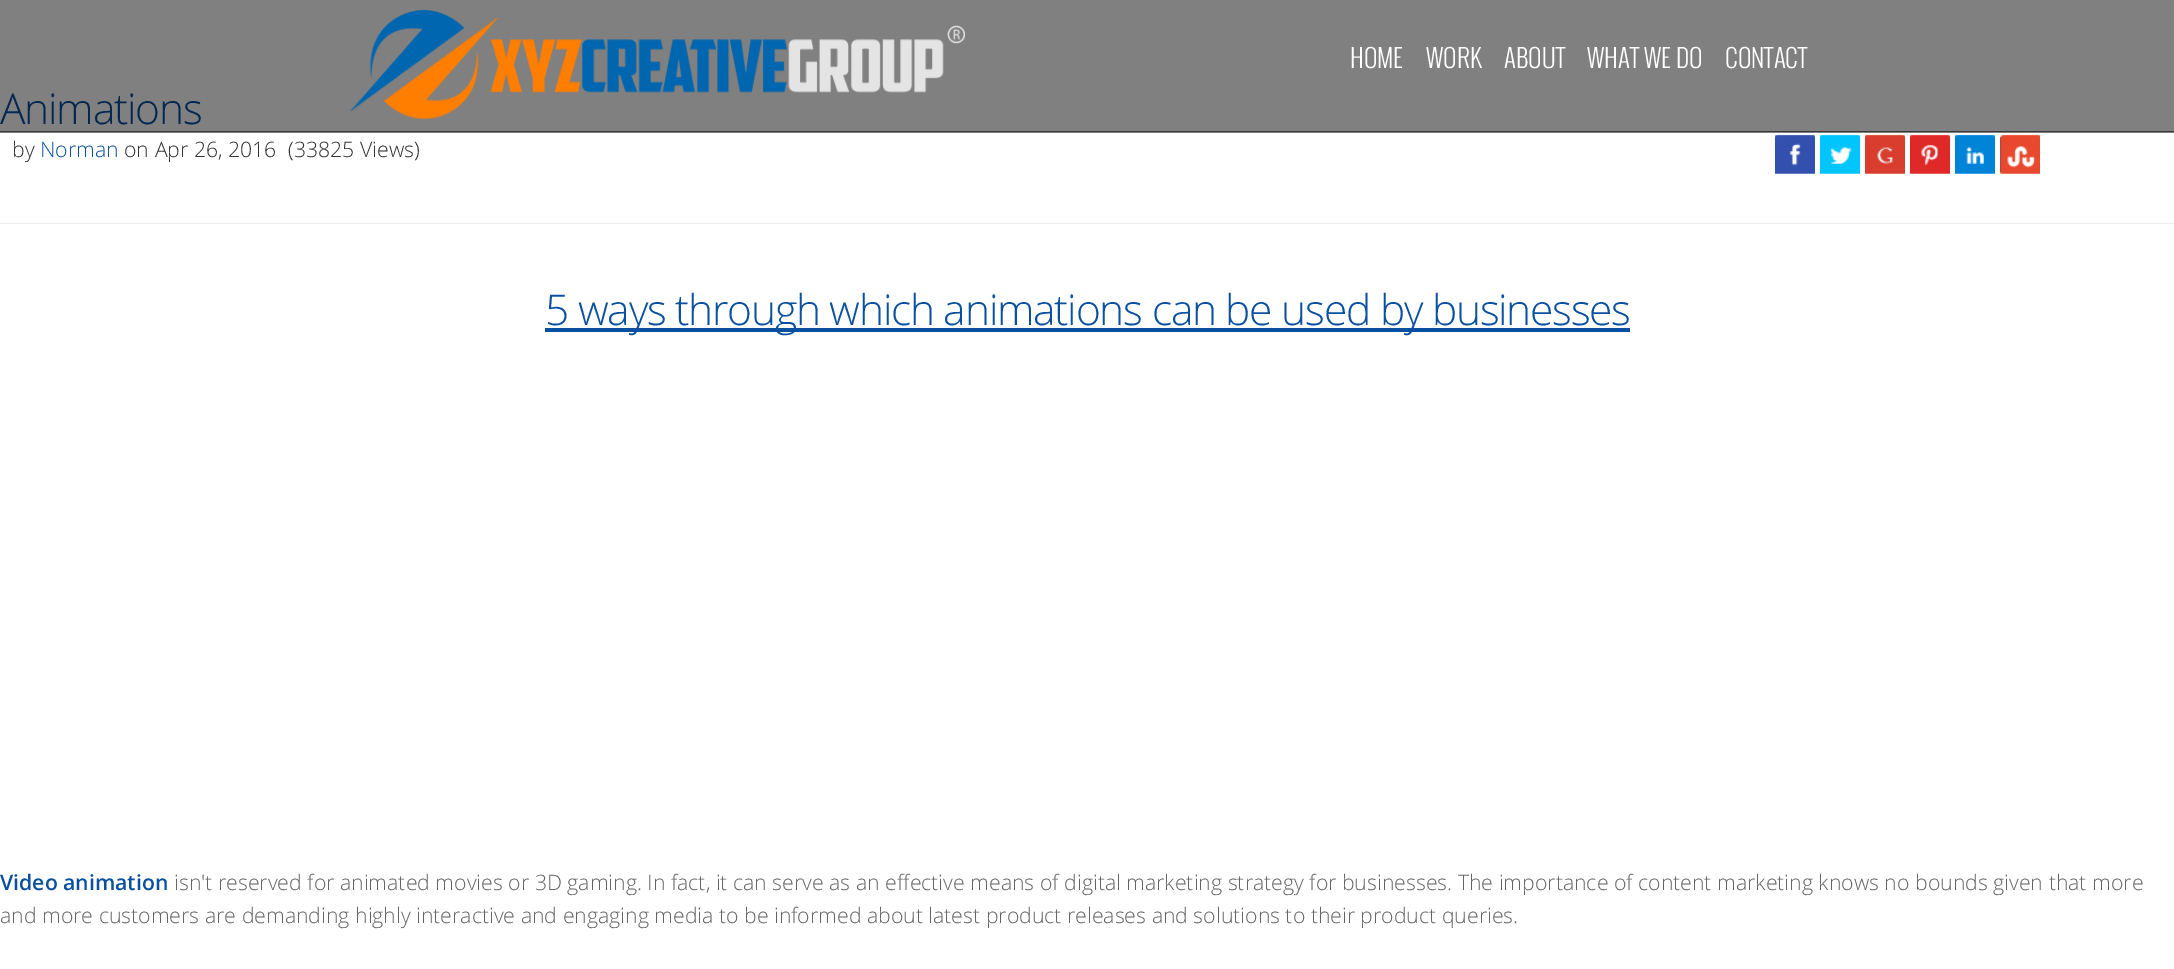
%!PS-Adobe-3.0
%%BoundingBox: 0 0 2174 969
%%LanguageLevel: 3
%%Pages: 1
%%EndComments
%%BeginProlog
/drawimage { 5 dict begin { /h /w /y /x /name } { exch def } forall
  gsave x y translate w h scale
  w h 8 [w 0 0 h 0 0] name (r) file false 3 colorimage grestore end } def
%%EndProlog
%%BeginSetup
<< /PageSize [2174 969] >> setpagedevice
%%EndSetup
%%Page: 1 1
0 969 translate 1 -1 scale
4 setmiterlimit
1 setgray
0 0 2174 969 rectfill
0.502 setgray
0 0 2174 133 rectfill
0.22 setgray
0 131 2174 1 rectfill
(images/1.raw) 350 10 615 109 drawimage
(images/2.raw) 1775 134 40 40 drawimage
(images/3.raw) 1820 134 40 40 drawimage
(images/4.raw) 1865 134 40 40 drawimage
(images/5.raw) 1910 134 40 40 drawimage
(images/6.raw) 1955 134 40 40 drawimage
(images/7.raw) 2000 134 40 40 drawimage
0.933 setgray
0 223 2174 1 rectfill
0.039 0.314 0.627 setrgbcolor
545 328 1085 4 rectfill
/Oswald-Light [25 0 0 -25 0 0] selectfont
1 setgray
1350 68 moveto (HOME) show
1426 68 moveto (WORK) show
1504 68 moveto (ABOUT) show
1587 68 moveto (WHAT WE DO) show
1725 68 moveto (CONTACT) show
/OpenSans-Light [42.5 0 0 -42.5 0 0] selectfont
0.02 0.157 0.314 setrgbcolor
0 124 moveto -1.25 0 (Animations) ashow
/OpenSans-Light [21.25 0 0 -21.25 0 0] selectfont
0.192 setgray
12 157 moveto (by) show
0.039 0.314 0.627 setrgbcolor
40 157 moveto (Norman) show
0.192 setgray
124 157 moveto (on Apr 26, 2016) show
288 157 moveto (\(33825 Views\)) show
/OpenSans-Light [42.5 0 0 -42.5 0 0] selectfont
0.039 0.314 0.627 setrgbcolor
545 325 moveto -1.25 0 (5 ways through which animations can be used by businesses) ashow
/OpenSans-SemiBold [21.25 0 0 -21.25 0 0] selectfont
0 890 moveto (Video animation) show
/OpenSans-Light [21.25 0 0 -21.25 0 0] selectfont
0.392 setgray
174 890 moveto (isn't reserved for animated movies or 3D gaming. In fact, it can serve as an effective means of digital marketing strategy for businesses. The importance of content marketing knows no bounds given that more) show
0 923 moveto (and more customers are demanding highly interactive and engaging media to be informed about latest product releases and solutions to their product queries.) show
showpage
%%EOF
